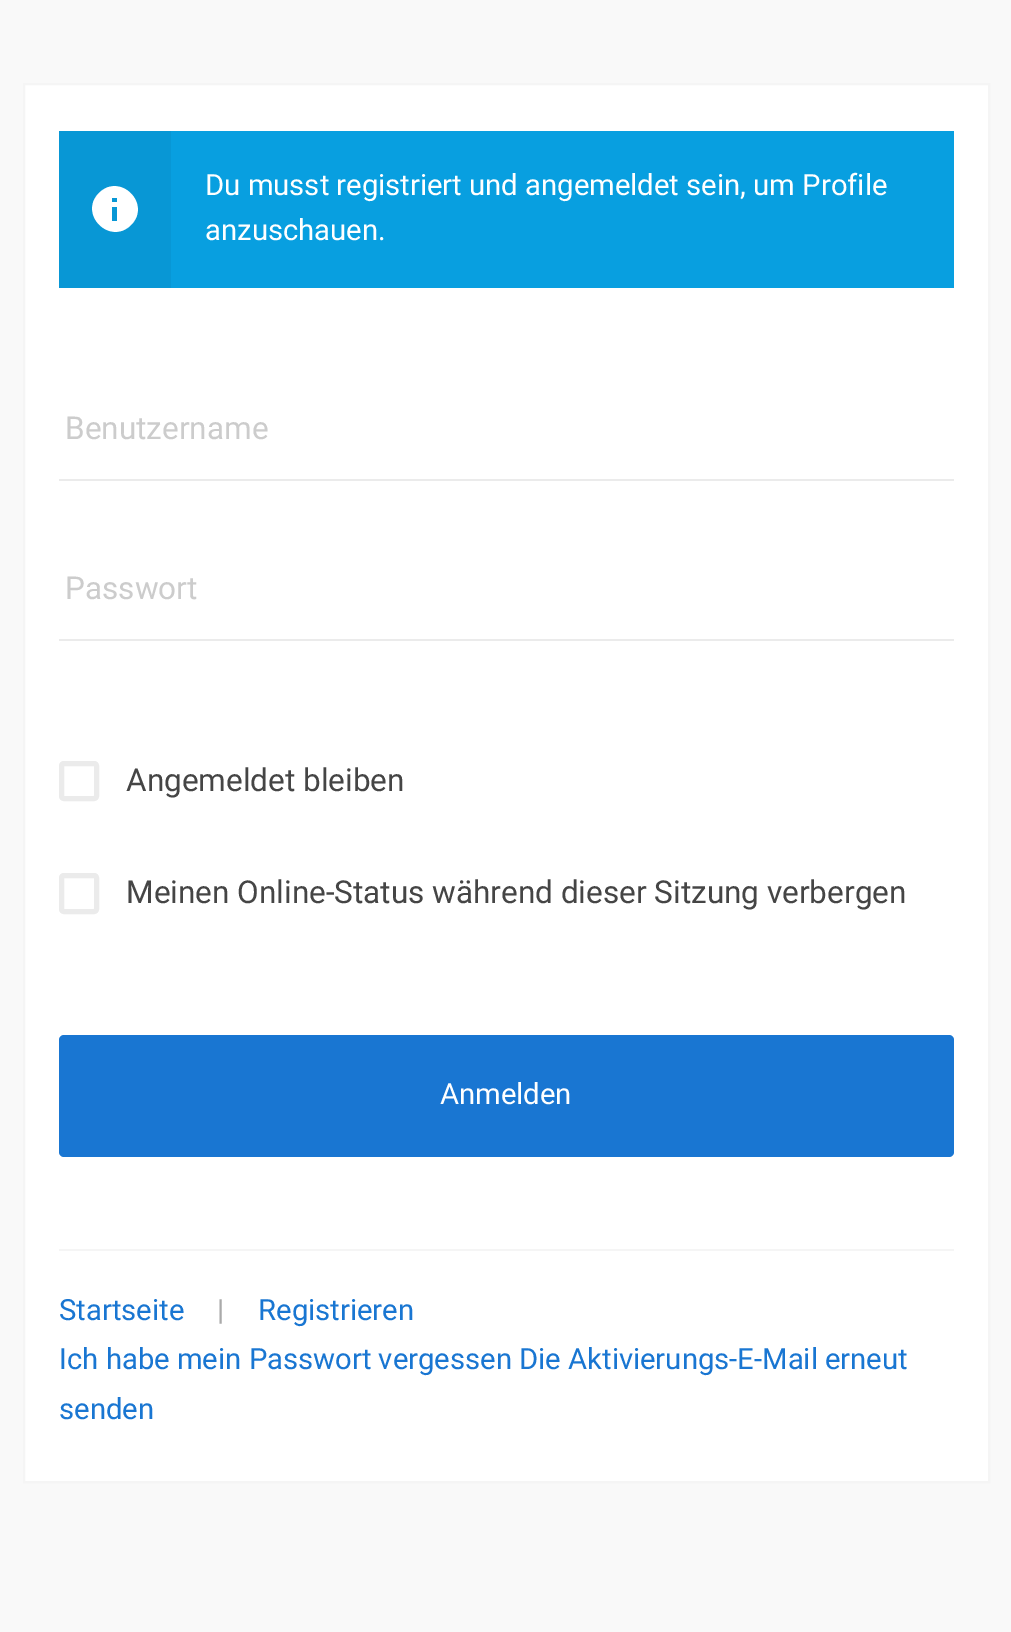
%!PS-Adobe-3.0
%%BoundingBox: 0 0 1011 1632
%%LanguageLevel: 3
%%Pages: 1
%%EndComments
%%BeginProlog
/rrect { 5 dict begin { /r /h /w /y /x } { exch def } forall
  x r add y moveto x w add y 2 copy h add r arct x w add y h add x 1 index r arct
  x y h add x y r arct x y 2 copy exch w add exch r arct closepath end } def
%%EndProlog
%%BeginSetup
<< /PageSize [1011 1632] >> setpagedevice
%%EndSetup
%%Page: 1 1
0 1632 translate 1 -1 scale
4 setmiterlimit
0.976 setgray
0 0 1011 1632 rectfill
1 setgray
newpath 24 84 moveto 989 84 lineto 989 1482 lineto 24 1482 lineto closepath gsave fill grestore
0.961 setgray
2 setlinewidth
stroke
0.031 0.624 0.878 setrgbcolor
171 131 783 157 rectfill
0.031 0.592 0.835 setrgbcolor
59 131 112 157 rectfill
1 setgray
newpath 99 193 moveto 120 172 152 204 131 225 curveto 110 246 78 214 99 193 curveto closepath 117 221 moveto 117 207 lineto 112 207 lineto 112 221 lineto closepath 117 202 moveto 117 198 lineto 112 198 lineto 112 202 lineto closepath fill
0.922 setgray
59 479 895 2 rectfill
59 639 895 2 rectfill
5 setlinewidth
61.5 763.5 35 35 2.5 rrect stroke
61.5 875.5 35 36 2.5 rrect stroke
0.098 0.463 0.824 setrgbcolor
59 1035 895 122 5 rrect fill
0.961 setgray
59 1249 895 2 rectfill
/Roboto-Regular [29.25 0 0 -29.25 0 0] selectfont
1 setgray
205 195 moveto (Du musst registriert und angemeldet sein, um Profile) show
205 240 moveto (anzuschauen.) show
/Roboto-Regular [31.5 0 0 -31.5 0 0] selectfont
0.8 setgray
65 439 moveto (Benutzername) show
65 599 moveto (Passwort) show
0.271 setgray
126 791 moveto (Angemeldet bleiben) show
126 903 moveto (Meinen Online-Status während dieser Sitzung verbergen) show
/Roboto-Regular [29.25 0 0 -29.25 0 0] selectfont
1 setgray
440 1104 moveto (Anmelden) show
0.098 0.463 0.824 setrgbcolor
59 1320 moveto (Startseite) show
0.667 setgray
217 1320 moveto (|) show
0.098 0.463 0.824 setrgbcolor
258 1320 moveto (Registrieren) show
59 1369 moveto (Ich habe mein Passwort vergessen Die Aktivierungs-E-Mail erneut) show
59 1419 moveto (senden) show
showpage
%%EOF
